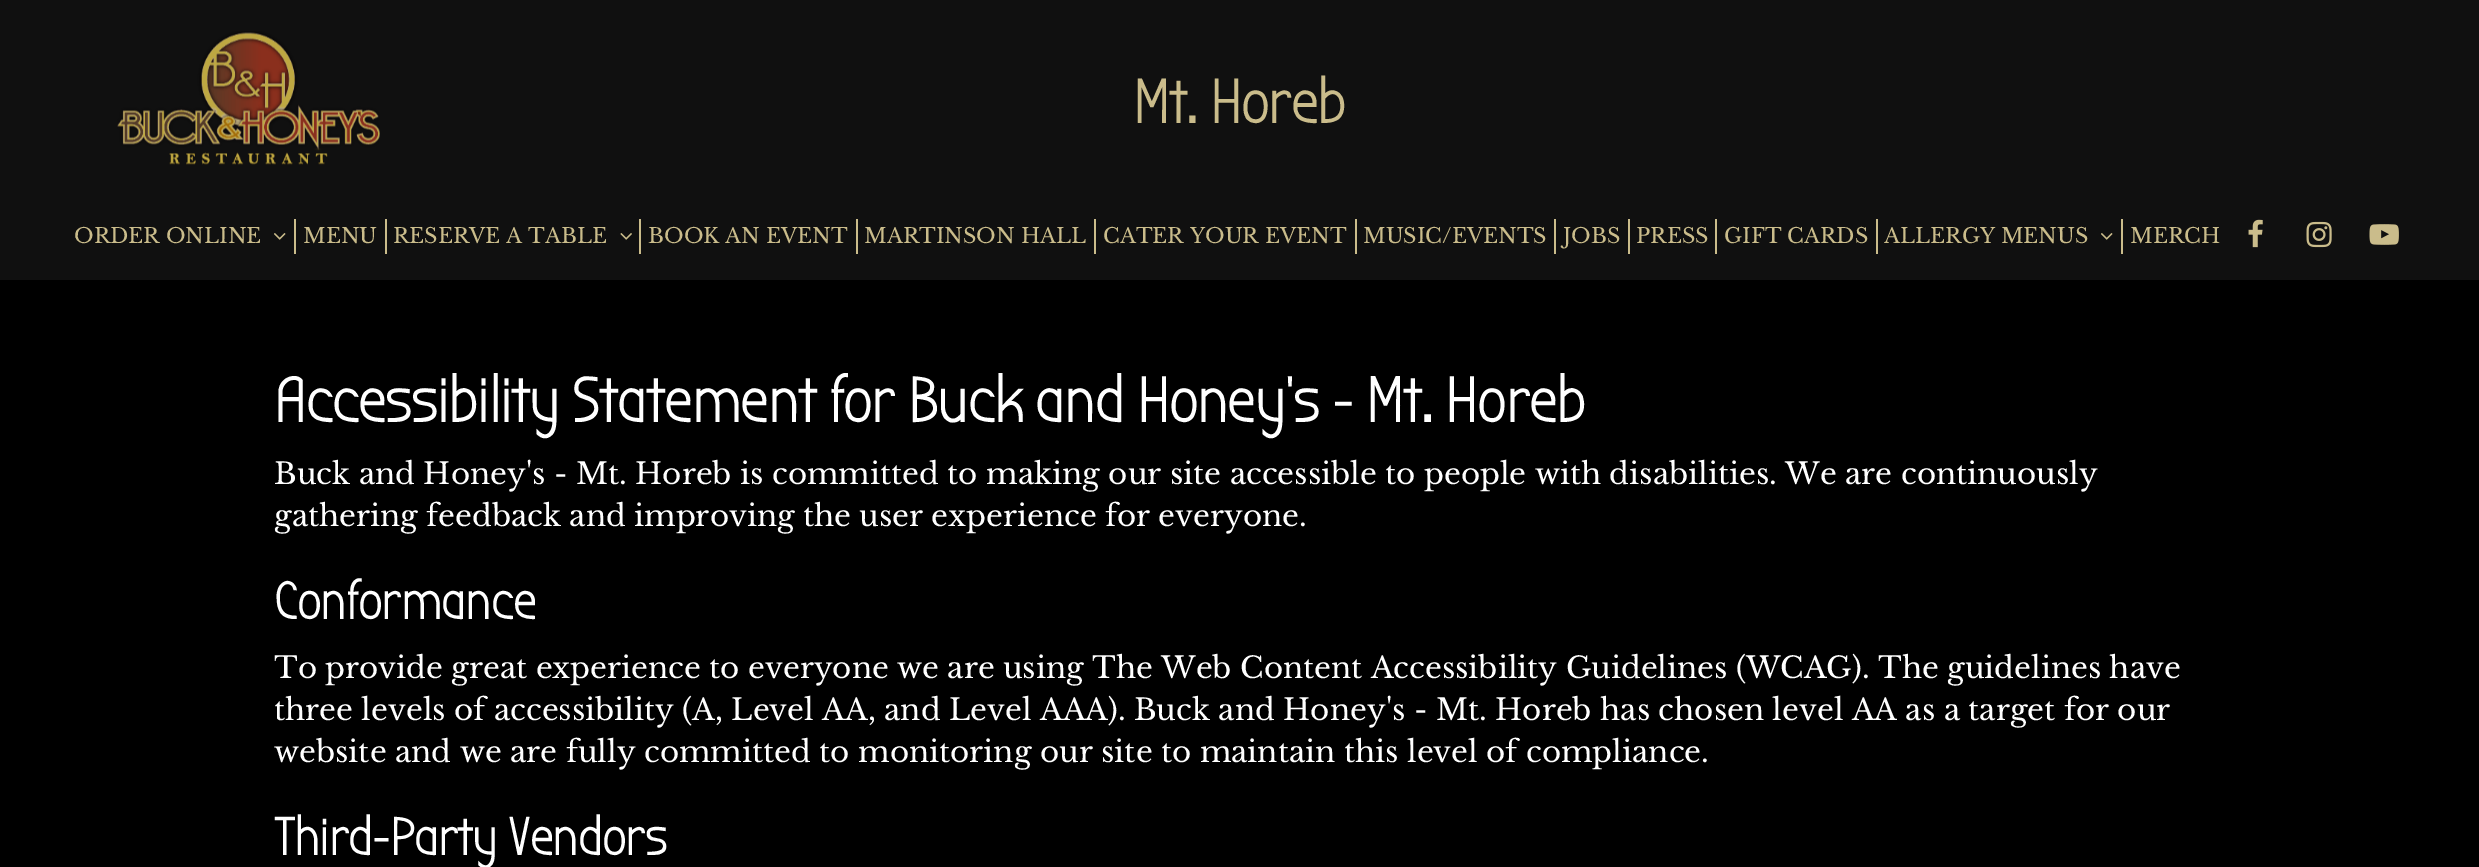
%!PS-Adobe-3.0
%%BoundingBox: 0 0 2479 867
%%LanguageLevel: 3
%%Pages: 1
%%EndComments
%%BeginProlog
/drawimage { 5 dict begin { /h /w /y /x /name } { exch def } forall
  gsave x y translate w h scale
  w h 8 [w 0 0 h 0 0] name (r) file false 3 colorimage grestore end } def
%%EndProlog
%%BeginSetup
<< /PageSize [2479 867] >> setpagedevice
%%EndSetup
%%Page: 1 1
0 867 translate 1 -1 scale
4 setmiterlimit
0 setgray
0 0 2479 867 rectfill
0.063 setgray
0 0 2479 280 rectfill
(images/1.raw) 117 31 263 134 drawimage
0.792 0.737 0.545 setrgbcolor
294 219 2 35 rectfill
(images/2.raw) 274 233 12 7 drawimage
385 219 2 35 rectfill
639 219 2 35 rectfill
(images/3.raw) 620 233 12 7 drawimage
856 219 2 35 rectfill
1094 219 2 35 rectfill
1355 219 2 35 rectfill
1554 219 2 35 rectfill
1628 219 2 35 rectfill
1715 219 2 35 rectfill
1876 219 2 35 rectfill
2121 219 2 35 rectfill
(images/2.raw) 2101 233 12 7 drawimage
(images/4.raw) 2248 219 15 29 drawimage
(images/5.raw) 2306 221 26 27 drawimage
(images/6.raw) 2369 224 30 21 drawimage
/BubblerOne-Bold [61 0 0 -61 0 0] selectfont
1133 123 moveto (Mt. Horeb) show
/LibreBaskerville-Regular [20.75 0 0 -20.75 0 0] selectfont
74 243 moveto (ORDER ONLINE) show
303 243 moveto (MENU) show
393 243 moveto (RESERVE A TABLE) show
648 243 moveto (BOOK AN EVENT) show
864 243 moveto (MARTINSON HALL) show
1103 243 moveto (CATER YOUR EVENT) show
1363 243 moveto (MUSIC/EVENTS) show
1563 243 moveto (JOBS) show
1636 243 moveto (PRESS) show
1724 243 moveto (GIFT CARDS) show
1884 243 moveto (ALLERGY MENUS) show
2130 243 moveto (MERCH) show
/BubblerOne-Bold [63 0 0 -63 0 0] selectfont
1 setgray
274 422 moveto (Accessibility Statement for Buck and Honey's - Mt. Horeb) show
/LibreBaskerville-Regular [29.4 0 0 -29.4 0 0] selectfont
274 484 moveto (Buck and Honey's - Mt. Horeb is committed to making our site accessible to people with disabilities. We are continuously) show
274 526 moveto -0.25 0 32 (gathering feedback and improving the user experience for everyone.) widthshow
/BubblerOne-Bold [52.5 0 0 -52.5 0 0] selectfont
274 619 moveto (Conformance) show
/LibreBaskerville-Regular [29.4 0 0 -29.4 0 0] selectfont
274 678 moveto -0.1 0 32 (To provide great experience to everyone we are using The Web Content Accessibility Guidelines \(WCAG\). The guidelines have) widthshow
274 720 moveto (three levels of accessibility \(A, Level AA, and Level AAA\). Buck and Honey's - Mt. Horeb has chosen level AA as a target for our) show
274 762 moveto (website and we are fully committed to monitoring our site to maintain this level of compliance.) show
/BubblerOne-Bold [52.5 0 0 -52.5 0 0] selectfont
274 855 moveto (Third-Party Vendors) show
showpage
%%EOF
